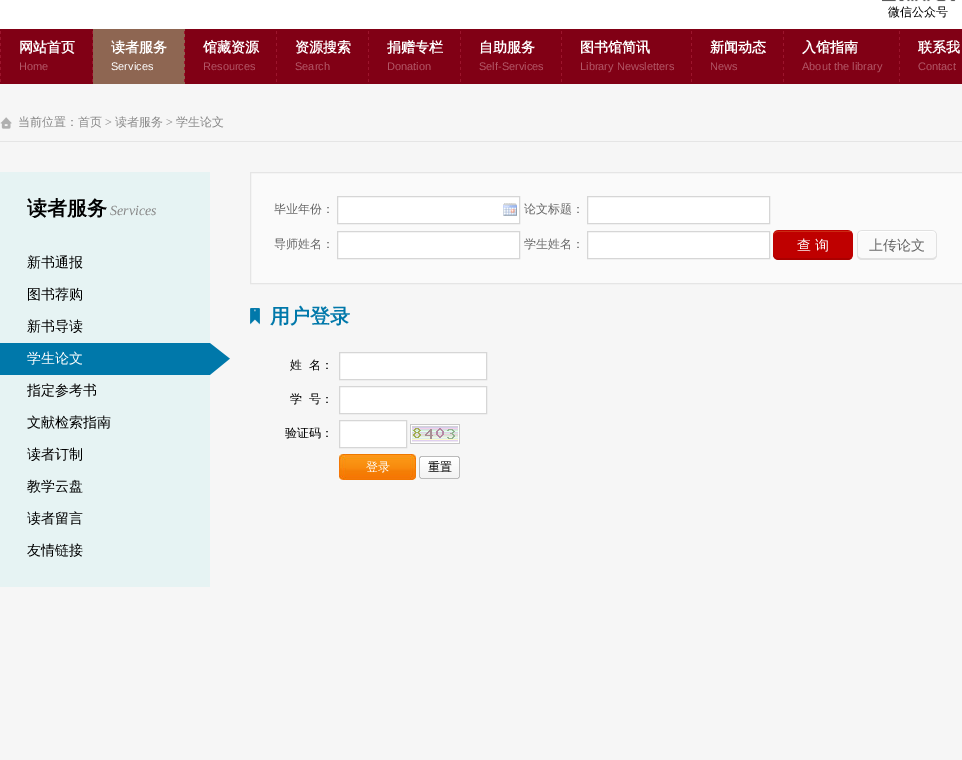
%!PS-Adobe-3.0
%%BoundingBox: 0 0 962 760
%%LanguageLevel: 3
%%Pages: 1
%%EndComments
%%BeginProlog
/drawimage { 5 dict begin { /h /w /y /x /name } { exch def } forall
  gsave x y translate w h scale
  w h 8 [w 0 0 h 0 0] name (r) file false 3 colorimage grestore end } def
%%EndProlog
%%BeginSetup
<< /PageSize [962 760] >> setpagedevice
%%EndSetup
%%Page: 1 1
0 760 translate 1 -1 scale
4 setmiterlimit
0.965 setgray
0 0 962 760 rectfill
1 setgray
0 0 962 29 rectfill
0.506 0 0.082 setrgbcolor
0 29 962 55 rectfill
(images/1.raw) 882 0 74 2 drawimage
(images/2.raw) 0 31 1 51 drawimage
(images/2.raw) 92 31 1 51 drawimage
0.557 0.4 0.322 setrgbcolor
93 29 92 55 rectfill
(images/3.raw) 184 31 1 51 drawimage
(images/2.raw) 276 31 1 51 drawimage
(images/2.raw) 368 31 1 51 drawimage
(images/2.raw) 460 31 1 51 drawimage
(images/2.raw) 561 31 1 51 drawimage
(images/2.raw) 691 31 1 51 drawimage
(images/2.raw) 783 31 1 51 drawimage
(images/2.raw) 899 31 1 51 drawimage
(images/4.raw) 0 117 12 12 drawimage
0.898 setgray
0 141 962 1 rectfill
0.902 0.953 0.953 setrgbcolor
0 172 210 415 rectfill
(images/5.raw) 0 343 230 32 drawimage
0.98 setgray
newpath 250.5 172.5 moveto 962.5 172.5 lineto 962.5 283.5 lineto 250.5 283.5 lineto closepath gsave fill grestore
0.898 setgray
stroke
1 setgray
338 197 181 26 rectfill
(images/6.raw) 503 203 14 13 drawimage
0.839 setgray
337.5 196.5 182 27 rectstroke
1 setgray
newpath 587.5 196.5 moveto 769.5 196.5 lineto 769.5 223.5 lineto 587.5 223.5 lineto closepath gsave fill grestore
0.839 setgray
stroke
1 setgray
newpath 337.5 231.5 moveto 519.5 231.5 lineto 519.5 258.5 lineto 337.5 258.5 lineto closepath gsave fill grestore
0.839 setgray
stroke
1 setgray
newpath 587.5 231.5 moveto 769.5 231.5 lineto 769.5 258.5 lineto 587.5 258.5 lineto closepath gsave fill grestore
0.839 setgray
stroke
(images/7.raw) 773 230 80 30 drawimage
(images/8.raw) 857 230 80 30 drawimage
(images/9.raw) 250 308 10 17 drawimage
1 setgray
newpath 339.5 352.5 moveto 486.5 352.5 lineto 486.5 379.5 lineto 339.5 379.5 lineto closepath gsave fill grestore
0.839 setgray
stroke
1 setgray
newpath 339.5 386.5 moveto 486.5 386.5 lineto 486.5 413.5 lineto 339.5 413.5 lineto closepath gsave fill grestore
0.839 setgray
stroke
1 setgray
newpath 339.5 420.5 moveto 406.5 420.5 lineto 406.5 447.5 lineto 339.5 447.5 lineto closepath gsave fill grestore
0.839 setgray
stroke
(images/10.raw) 410 424 50 20 drawimage
(images/11.raw) 339 454 77 26 drawimage
(images/12.raw) 419 456 41 23 drawimage
/WenQuanYiZenHei-Medium [12 0 0 -12 0 0] selectfont
0 setgray
888 16 moveto (微信公众号) show
/WenQuanYiZenHei-Bold [14 0 0 -14 0 0] selectfont
1 setgray
19 52 moveto (网站首页) show
/LiberationSans-Regular [11 0 0 -11 0 0] selectfont
0.702 0.341 0.404 setrgbcolor
19 70 moveto (Home) show
/WenQuanYiZenHei-Bold [14 0 0 -14 0 0] selectfont
1 setgray
111 52 moveto (读者服务) show
/LiberationSans-Regular [11 0 0 -11 0 0] selectfont
111 70 moveto (Services) show
/WenQuanYiZenHei-Bold [14 0 0 -14 0 0] selectfont
203 52 moveto (馆藏资源) show
/LiberationSans-Regular [11 0 0 -11 0 0] selectfont
0.702 0.341 0.404 setrgbcolor
203 70 moveto (Resources) show
/WenQuanYiZenHei-Bold [14 0 0 -14 0 0] selectfont
1 setgray
295 52 moveto (资源搜索) show
/LiberationSans-Regular [11 0 0 -11 0 0] selectfont
0.702 0.341 0.404 setrgbcolor
295 70 moveto (Search) show
/WenQuanYiZenHei-Bold [14 0 0 -14 0 0] selectfont
1 setgray
387 52 moveto (捐赠专栏) show
/LiberationSans-Regular [11 0 0 -11 0 0] selectfont
0.702 0.341 0.404 setrgbcolor
387 70 moveto (Donation) show
/WenQuanYiZenHei-Bold [14 0 0 -14 0 0] selectfont
1 setgray
479 52 moveto (自助服务) show
/LiberationSans-Regular [11 0 0 -11 0 0] selectfont
0.702 0.341 0.404 setrgbcolor
479 70 moveto (Self-Services) show
/WenQuanYiZenHei-Bold [14 0 0 -14 0 0] selectfont
1 setgray
580 52 moveto (图书馆简讯) show
/LiberationSans-Regular [11 0 0 -11 0 0] selectfont
0.702 0.341 0.404 setrgbcolor
580 70 moveto (Library Newsletters) show
/WenQuanYiZenHei-Bold [14 0 0 -14 0 0] selectfont
1 setgray
710 52 moveto (新闻动态) show
/LiberationSans-Regular [11 0 0 -11 0 0] selectfont
0.702 0.341 0.404 setrgbcolor
710 70 moveto (News) show
/WenQuanYiZenHei-Bold [14 0 0 -14 0 0] selectfont
1 setgray
802 52 moveto (入馆指南) show
/LiberationSans-Regular [11 0 0 -11 0 0] selectfont
0.702 0.341 0.404 setrgbcolor
802 70 moveto (About the library) show
/WenQuanYiZenHei-Bold [14 0 0 -14 0 0] selectfont
1 setgray
918 52 moveto (联系我) show
/LiberationSans-Regular [11 0 0 -11 0 0] selectfont
0.702 0.341 0.404 setrgbcolor
918 70 moveto (Contact) show
/WenQuanYiZenHei-Medium [12 0 0 -12 0 0] selectfont
0.533 setgray
18 126 moveto (当前位置：首页) show
/LiberationSerif-Regular [12 0 0 -12 0 0] selectfont
105 126 moveto (>) show
/WenQuanYiZenHei-Medium [12 0 0 -12 0 0] selectfont
115 126 moveto (读者服务) show
/LiberationSerif-Regular [12 0 0 -12 0 0] selectfont
166 126 moveto (>) show
/WenQuanYiZenHei-Medium [12 0 0 -12 0 0] selectfont
176 126 moveto (学生论文) show
/WenQuanYiZenHei-Bold [20 0 0 -20 0 0] selectfont
0 setgray
27 215 moveto (读者服务) show
/LiberationSerif-Italic [14 0 0 -14 0 0] selectfont
0.533 setgray
110 215 moveto (Services) show
/WenQuanYiZenHei-Medium [14 0 0 -14 0 0] selectfont
0 setgray
27 267 moveto (新书通报) show
27 299 moveto (图书荐购) show
27 331 moveto (新书导读) show
1 setgray
27 363 moveto (学生论文) show
0 setgray
27 395 moveto (指定参考书) show
27 427 moveto (文献检索指南) show
27 459 moveto (读者订制) show
27 491 moveto (教学云盘) show
27 523 moveto (读者留言) show
27 555 moveto (友情链接) show
/WenQuanYiZenHei-Medium [12 0 0 -12 0 0] selectfont
0.4 setgray
274 213 moveto (毕业年份：) show
524 213 moveto (论文标题：) show
274 248 moveto (导师姓名：) show
524 248 moveto (学生姓名：) show
/WenQuanYiZenHei-Medium [14 0 0 -14 0 0] selectfont
1 setgray
797 250 moveto (查 询) show
0.4 setgray
869 250 moveto (上传论文) show
/WenQuanYiZenHei-Bold [20 0 0 -20 0 0] selectfont
0 0.471 0.667 setrgbcolor
270 323 moveto (用户登录) show
/WenQuanYiZenHei-Medium [12 0 0 -12 0 0] selectfont
0 setgray
290 369 moveto (姓) show
309 369 moveto (名：) show
290 403 moveto (学) show
309 403 moveto (号：) show
285 437 moveto (验证码：) show
1 setgray
366 471 moveto (登录) show
0 setgray
428 471 moveto (重置) show
showpage
%%EOF
